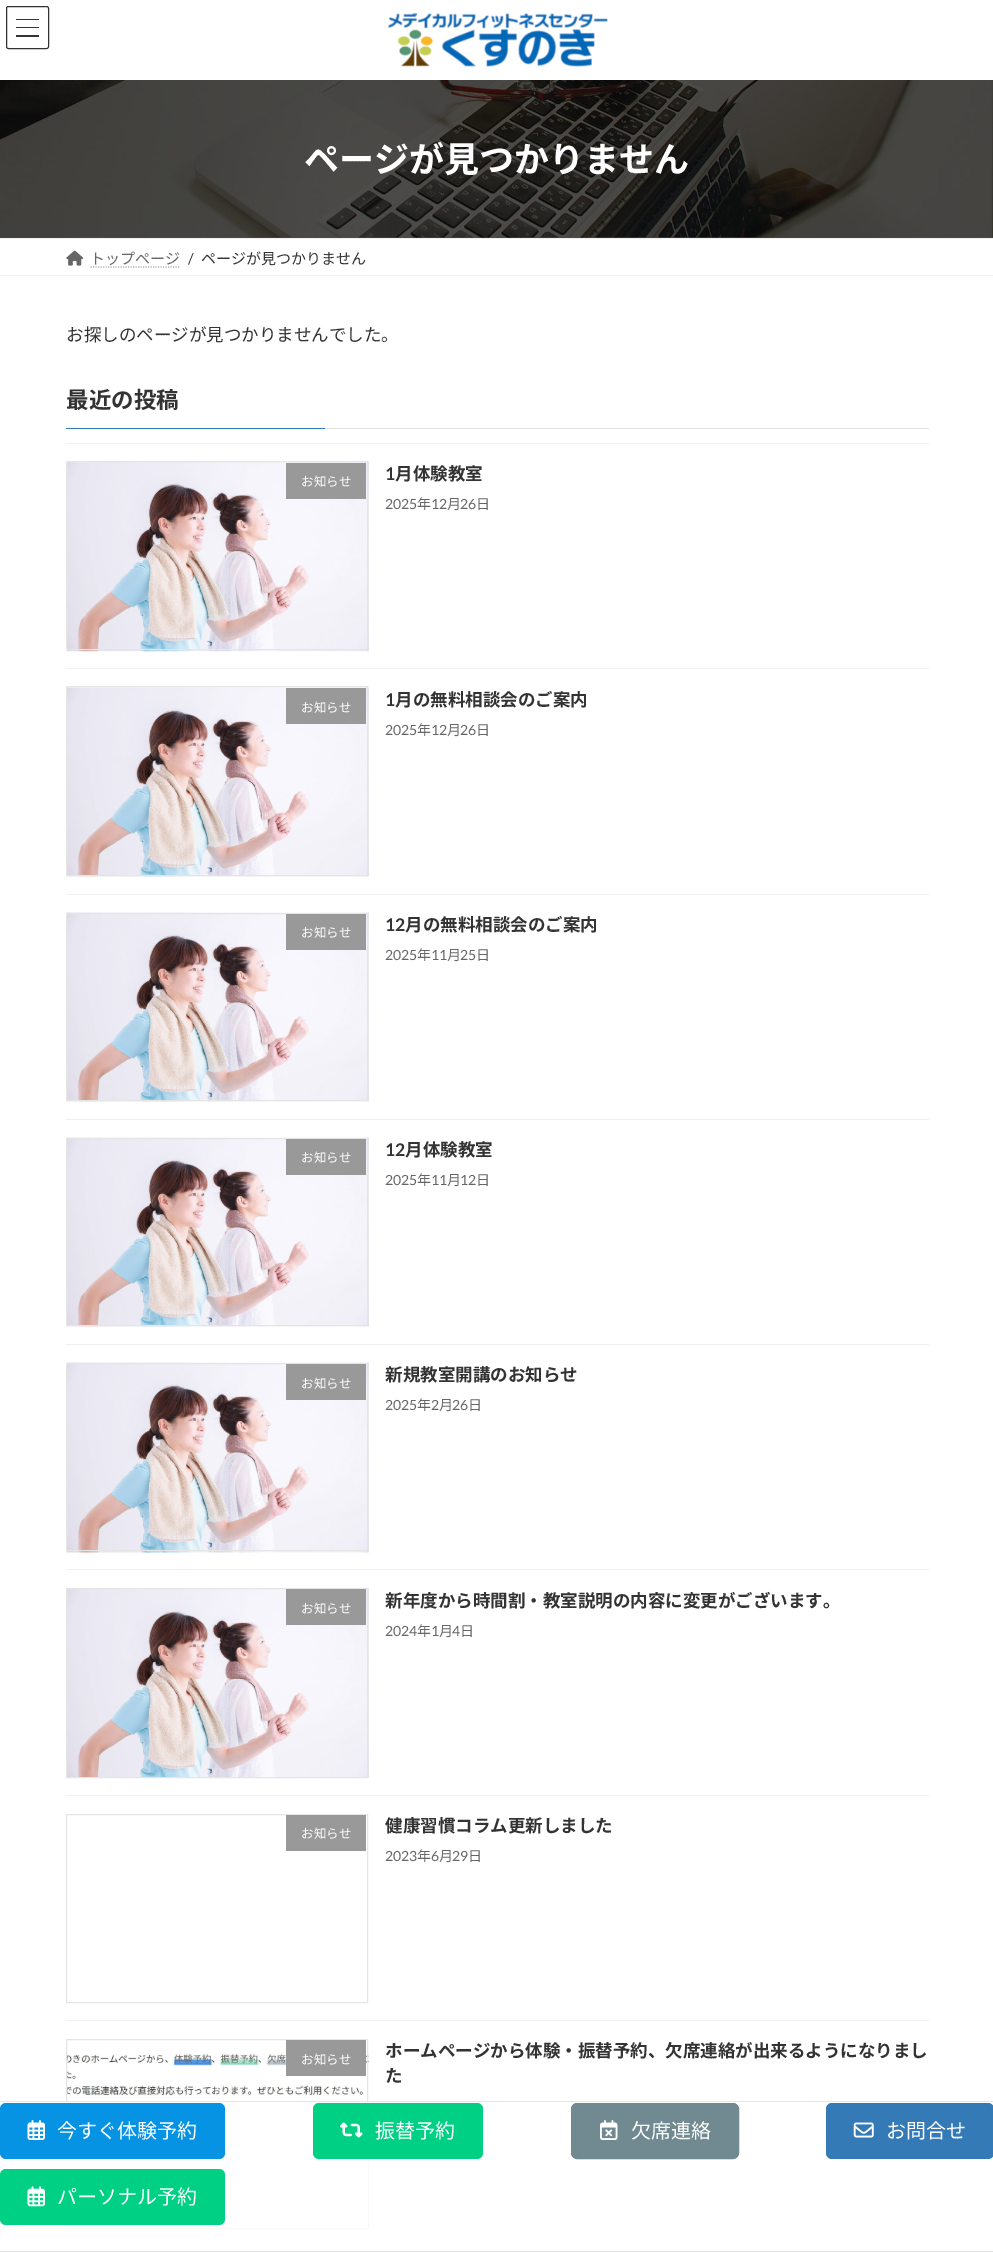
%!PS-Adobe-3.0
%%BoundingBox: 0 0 993 2252
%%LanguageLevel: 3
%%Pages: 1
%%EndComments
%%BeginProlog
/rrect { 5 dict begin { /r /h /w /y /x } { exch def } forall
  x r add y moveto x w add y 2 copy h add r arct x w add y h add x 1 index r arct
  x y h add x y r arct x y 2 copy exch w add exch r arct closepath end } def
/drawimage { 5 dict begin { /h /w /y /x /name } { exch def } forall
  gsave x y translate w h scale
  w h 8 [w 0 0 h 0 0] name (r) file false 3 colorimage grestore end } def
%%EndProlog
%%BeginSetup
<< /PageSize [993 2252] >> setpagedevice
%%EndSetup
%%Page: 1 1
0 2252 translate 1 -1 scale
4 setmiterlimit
1 setgray
0 0 993 2252 rectfill
0.302 setgray
0 237 993 1 rectfill
0.2 setgray
16 19 23 1 rectfill
16 27 23 1 rectfill
16 35 23 2 rectfill
6.5 6.5 42 42 2 rrect stroke
(images/1.raw) 387 13 221 54 drawimage
(images/2.raw) 0 80 993 158 drawimage
0.941 setgray
0 238 993 1 rectfill
0 275 993 1 rectfill
(images/3.raw) 66 250 18 16 drawimage
0.702 setgray
1.2 setlinewidth
[1.25 1.25] 0 setdash
newpath 90.5 267 moveto 180.5 267 lineto stroke
0.878 setgray
325 428 604 1 rectfill
0.2 0.478 0.718 setrgbcolor
66 428 259 1 rectfill
0.941 setgray
66 443 863 1 rectfill
66 668 863 1 rectfill
(images/4.raw) 66 461 303 191 drawimage
0.898 setgray
1 setlinewidth
[] 0 setdash
66.5 461.5 301 188 rectstroke
0.6 setgray
286 463 80 36 rectfill
0.941 setgray
66 894 863 1 rectfill
(images/5.raw) 66 687 303 190 drawimage
0.898 setgray
66.5 686.5 301 189 rectstroke
0.6 setgray
286 688 80 36 rectfill
0.941 setgray
66 1119 863 1 rectfill
(images/6.raw) 66 912 303 190 drawimage
0.898 setgray
66.5 913.5 301 187 rectstroke
0.6 setgray
286 914 80 36 rectfill
0.941 setgray
66 1344 863 1 rectfill
(images/7.raw) 66 1137 303 190 drawimage
0.898 setgray
66.5 1138.5 301 187 rectstroke
0.6 setgray
286 1139 80 36 rectfill
0.941 setgray
66 1569 863 1 rectfill
(images/8.raw) 66 1362 303 191 drawimage
0.898 setgray
66.5 1363.5 301 187 rectstroke
0.6 setgray
286 1364 80 36 rectfill
0.941 setgray
66 1795 863 1 rectfill
(images/9.raw) 67 1588 302 190 drawimage
0.898 setgray
66.5 1588.5 301 189 rectstroke
0.6 setgray
286 1589 80 36 rectfill
0.941 setgray
66 2020 863 1 rectfill
0.898 setgray
66.5 1814.5 301 188 rectstroke
0.6 setgray
286 1815 80 36 rectfill
(images/10.raw) 67 2052 302 49 drawimage
0.898 setgray
66.5 2039.5 301 188 rectstroke
0.6 setgray
286 2040 80 36 rectfill
1 setgray
66 2102 302 126 rectfill
0.902 setgray
0 2101 993 1 rectfill
0 2251 993 1 rectfill
0.024 0.576 0.89 setrgbcolor
0 2103 225 56 6 rrect fill
(images/11.raw) 27 2120 18 20 drawimage
0 0.816 0.518 setrgbcolor
313 2103 170 56 6 rrect fill
(images/12.raw) 340 2122 23 16 drawimage
0.443 0.541 0.569 setrgbcolor
571.5 2103.5 167 55 5.5 rrect gsave fill grestore
stroke
(images/13.raw) 600 2120 18 20 drawimage
0.2 0.478 0.718 setrgbcolor
826 2103 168 56 6 rrect fill
(images/14.raw) 853 2122 21 16 drawimage
0 0.816 0.518 setrgbcolor
0 2169 225 56 6 rrect fill
(images/15.raw) 27 2186 18 21 drawimage
/NotoSansJP-Bold [35 0 0 -35 0 0] selectfont
1 setgray
304 172 moveto (ページが見つかりません) show
/NotoSansJP-Regular [15 0 0 -15 0 0] selectfont
0.4 setgray
90 264 moveto (トップページ) show
/Lato-Regular [15 0 0 -15 0 0] selectfont
0.2 setgray
188 264 moveto (/) show
/NotoSansJP-Regular [15 0 0 -15 0 0] selectfont
201 264 moveto (ページが見つかりません) show
/NotoSansJP-Regular [17.5 0 0 -17.5 0 0] selectfont
66 341 moveto (お探しのページが見つかりませんでした。) show
/NotoSansJP-Bold [22.5 0 0 -22.5 0 0] selectfont
66 408 moveto (最近の投稿) show
/NotoSansJP-Regular [12.5 0 0 -12.5 0 0] selectfont
1 setgray
301 486 moveto (お知らせ) show
/Lato-Bold [17.5 0 0 -17.5 0 0] selectfont
0.2 setgray
385 480 moveto (1) show
/NotoSansJP-Bold [17.5 0 0 -17.5 0 0] selectfont
395 480 moveto (月体験教室) show
/Lato-Regular [14 0 0 -14 0 0] selectfont
0.4 setgray
385 509 moveto (2025) show
/NotoSansJP-Regular [14 0 0 -14 0 0] selectfont
417 509 moveto (年) show
/Lato-Regular [14 0 0 -14 0 0] selectfont
431 509 moveto (12) show
/NotoSansJP-Regular [14 0 0 -14 0 0] selectfont
447 509 moveto (月) show
/Lato-Regular [14 0 0 -14 0 0] selectfont
460 509 moveto (26) show
/NotoSansJP-Regular [14 0 0 -14 0 0] selectfont
476 509 moveto (日) show
/NotoSansJP-Regular [12.5 0 0 -12.5 0 0] selectfont
1 setgray
301 712 moveto (お知らせ) show
/Lato-Bold [17.5 0 0 -17.5 0 0] selectfont
0.2 setgray
385 706 moveto (1) show
/NotoSansJP-Bold [17.5 0 0 -17.5 0 0] selectfont
395 706 moveto (月の無料相談会のご案内) show
/Lato-Regular [14 0 0 -14 0 0] selectfont
0.4 setgray
385 735 moveto (2025) show
/NotoSansJP-Regular [14 0 0 -14 0 0] selectfont
417 735 moveto (年) show
/Lato-Regular [14 0 0 -14 0 0] selectfont
431 735 moveto (12) show
/NotoSansJP-Regular [14 0 0 -14 0 0] selectfont
447 735 moveto (月) show
/Lato-Regular [14 0 0 -14 0 0] selectfont
460 735 moveto (26) show
/NotoSansJP-Regular [14 0 0 -14 0 0] selectfont
476 735 moveto (日) show
/NotoSansJP-Regular [12.5 0 0 -12.5 0 0] selectfont
1 setgray
301 937 moveto (お知らせ) show
/Lato-Bold [17.5 0 0 -17.5 0 0] selectfont
0.2 setgray
385 931 moveto (12) show
/NotoSansJP-Bold [17.5 0 0 -17.5 0 0] selectfont
405 931 moveto (月の無料相談会のご案内) show
/Lato-Regular [14 0 0 -14 0 0] selectfont
0.4 setgray
385 960 moveto (2025) show
/NotoSansJP-Regular [14 0 0 -14 0 0] selectfont
417 960 moveto (年) show
/Lato-Regular [14 0 0 -14 0 0] selectfont
431 960 moveto (11) show
/NotoSansJP-Regular [14 0 0 -14 0 0] selectfont
447 960 moveto (月) show
/Lato-Regular [14 0 0 -14 0 0] selectfont
460 960 moveto (25) show
/NotoSansJP-Regular [14 0 0 -14 0 0] selectfont
476 960 moveto (日) show
/NotoSansJP-Regular [12.5 0 0 -12.5 0 0] selectfont
1 setgray
301 1162 moveto (お知らせ) show
/Lato-Bold [17.5 0 0 -17.5 0 0] selectfont
0.2 setgray
385 1156 moveto (12) show
/NotoSansJP-Bold [17.5 0 0 -17.5 0 0] selectfont
405 1156 moveto (月体験教室) show
/Lato-Regular [14 0 0 -14 0 0] selectfont
0.4 setgray
385 1185 moveto (2025) show
/NotoSansJP-Regular [14 0 0 -14 0 0] selectfont
417 1185 moveto (年) show
/Lato-Regular [14 0 0 -14 0 0] selectfont
431 1185 moveto (11) show
/NotoSansJP-Regular [14 0 0 -14 0 0] selectfont
447 1185 moveto (月) show
/Lato-Regular [14 0 0 -14 0 0] selectfont
460 1185 moveto (12) show
/NotoSansJP-Regular [14 0 0 -14 0 0] selectfont
476 1185 moveto (日) show
/NotoSansJP-Regular [12.5 0 0 -12.5 0 0] selectfont
1 setgray
301 1388 moveto (お知らせ) show
/NotoSansJP-Bold [17.5 0 0 -17.5 0 0] selectfont
0.2 setgray
385 1381 moveto (新規教室開講のお知らせ) show
/Lato-Regular [14 0 0 -14 0 0] selectfont
0.4 setgray
385 1410 moveto (2025) show
/NotoSansJP-Regular [14 0 0 -14 0 0] selectfont
417 1410 moveto (年) show
/Lato-Regular [14 0 0 -14 0 0] selectfont
431 1410 moveto (2) show
/NotoSansJP-Regular [14 0 0 -14 0 0] selectfont
439 1410 moveto (月) show
/Lato-Regular [14 0 0 -14 0 0] selectfont
452 1410 moveto (26) show
/NotoSansJP-Regular [14 0 0 -14 0 0] selectfont
468 1410 moveto (日) show
/NotoSansJP-Regular [12.5 0 0 -12.5 0 0] selectfont
1 setgray
301 1613 moveto (お知らせ) show
/NotoSansJP-Bold [17.5 0 0 -17.5 0 0] selectfont
0.2 setgray
385 1607 moveto (新年度から時間割・教室説明の内容に変更がございます。) show
/Lato-Regular [14 0 0 -14 0 0] selectfont
0.4 setgray
385 1636 moveto (2024) show
/NotoSansJP-Regular [14 0 0 -14 0 0] selectfont
417 1636 moveto (年) show
/Lato-Regular [14 0 0 -14 0 0] selectfont
431 1636 moveto (1) show
/NotoSansJP-Regular [14 0 0 -14 0 0] selectfont
439 1636 moveto (月) show
/Lato-Regular [14 0 0 -14 0 0] selectfont
452 1636 moveto (4) show
/NotoSansJP-Regular [14 0 0 -14 0 0] selectfont
460 1636 moveto (日) show
/NotoSansJP-Regular [12.5 0 0 -12.5 0 0] selectfont
1 setgray
301 1838 moveto (お知らせ) show
/NotoSansJP-Bold [17.5 0 0 -17.5 0 0] selectfont
0.2 setgray
385 1832 moveto (健康習慣コラム更新しました) show
/Lato-Regular [14 0 0 -14 0 0] selectfont
0.4 setgray
385 1861 moveto (2023) show
/NotoSansJP-Regular [14 0 0 -14 0 0] selectfont
417 1861 moveto (年) show
/Lato-Regular [14 0 0 -14 0 0] selectfont
431 1861 moveto (6) show
/NotoSansJP-Regular [14 0 0 -14 0 0] selectfont
439 1861 moveto (月) show
/Lato-Regular [14 0 0 -14 0 0] selectfont
452 1861 moveto (29) show
/NotoSansJP-Regular [14 0 0 -14 0 0] selectfont
468 1861 moveto (日) show
/NotoSansJP-Regular [12.5 0 0 -12.5 0 0] selectfont
1 setgray
301 2064 moveto (お知らせ) show
/NotoSansJP-Bold [17.5 0 0 -17.5 0 0] selectfont
0.2 setgray
385 2057 moveto (ホームページから体験・振替予約、欠席連絡が出来るようになりまし) show
385 2082 moveto (た) show
/NotoSansJP-Regular [20 0 0 -20 0 0] selectfont
1 setgray
57 2138 moveto (今すぐ体験予約) show
375 2138 moveto (振替予約) show
631 2138 moveto (欠席連絡) show
886 2138 moveto (お問合せ) show
57 2204 moveto (パーソナル予約) show
showpage
%%EOF
